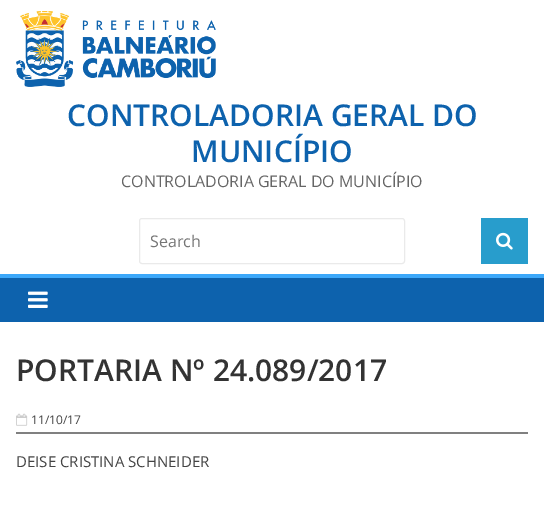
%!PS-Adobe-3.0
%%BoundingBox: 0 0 544 508
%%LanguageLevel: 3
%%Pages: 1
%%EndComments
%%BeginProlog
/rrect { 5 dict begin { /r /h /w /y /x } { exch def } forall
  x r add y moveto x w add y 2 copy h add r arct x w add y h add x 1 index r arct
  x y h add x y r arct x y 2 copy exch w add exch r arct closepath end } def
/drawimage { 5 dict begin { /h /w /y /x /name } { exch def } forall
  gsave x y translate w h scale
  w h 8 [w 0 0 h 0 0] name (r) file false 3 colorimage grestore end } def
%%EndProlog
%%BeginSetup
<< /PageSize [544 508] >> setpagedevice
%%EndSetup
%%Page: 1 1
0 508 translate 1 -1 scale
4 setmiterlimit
1 setgray
0 0 544 508 rectfill
(images/1.raw) 16 11 200 76 drawimage
0.918 setgray
139.5 218.5 265 45 2.5 rrect stroke
0.157 0.616 0.8 setrgbcolor
481 218 47 46 rectfill
(images/2.raw) 496 232 17 18 drawimage
0.051 0.384 0.678 setrgbcolor
0 278 544 44 rectfill
0.235 0.659 0.98 setrgbcolor
0 274 544 4 rectfill
(images/3.raw) 28 291 20 17 drawimage
(images/4.raw) 16 413 12 13 drawimage
0.502 setgray
16 432 512 2 rectfill
/OpenSans-SemiBold [30 0 0 -30 0 0] selectfont
0.051 0.384 0.678 setrgbcolor
67 126 moveto (CONTROLADORIA GERAL DO) show
191 162 moveto (MUNICÍPIO) show
/OpenSans-Regular [16 0 0 -16 0 0] selectfont
0.4 setgray
121 187 moveto (CONTROLADORIA GERAL DO MUNICÍPIO) show
0.459 setgray
150 247 moveto (Search) show
/OpenSans-SemiBold [30 0 0 -30 0 0] selectfont
0.2 setgray
16 381 moveto (PORTARIA Nº 24.089/2017) show
/OpenSans-Regular [12 0 0 -12 0 0] selectfont
0.267 setgray
31 424 moveto (11/10/17) show
/OpenSans-Regular [15 0 0 -15 0 0] selectfont
16 467 moveto (DEISE CRISTINA SCHNEIDER) show
showpage
%%EOF
